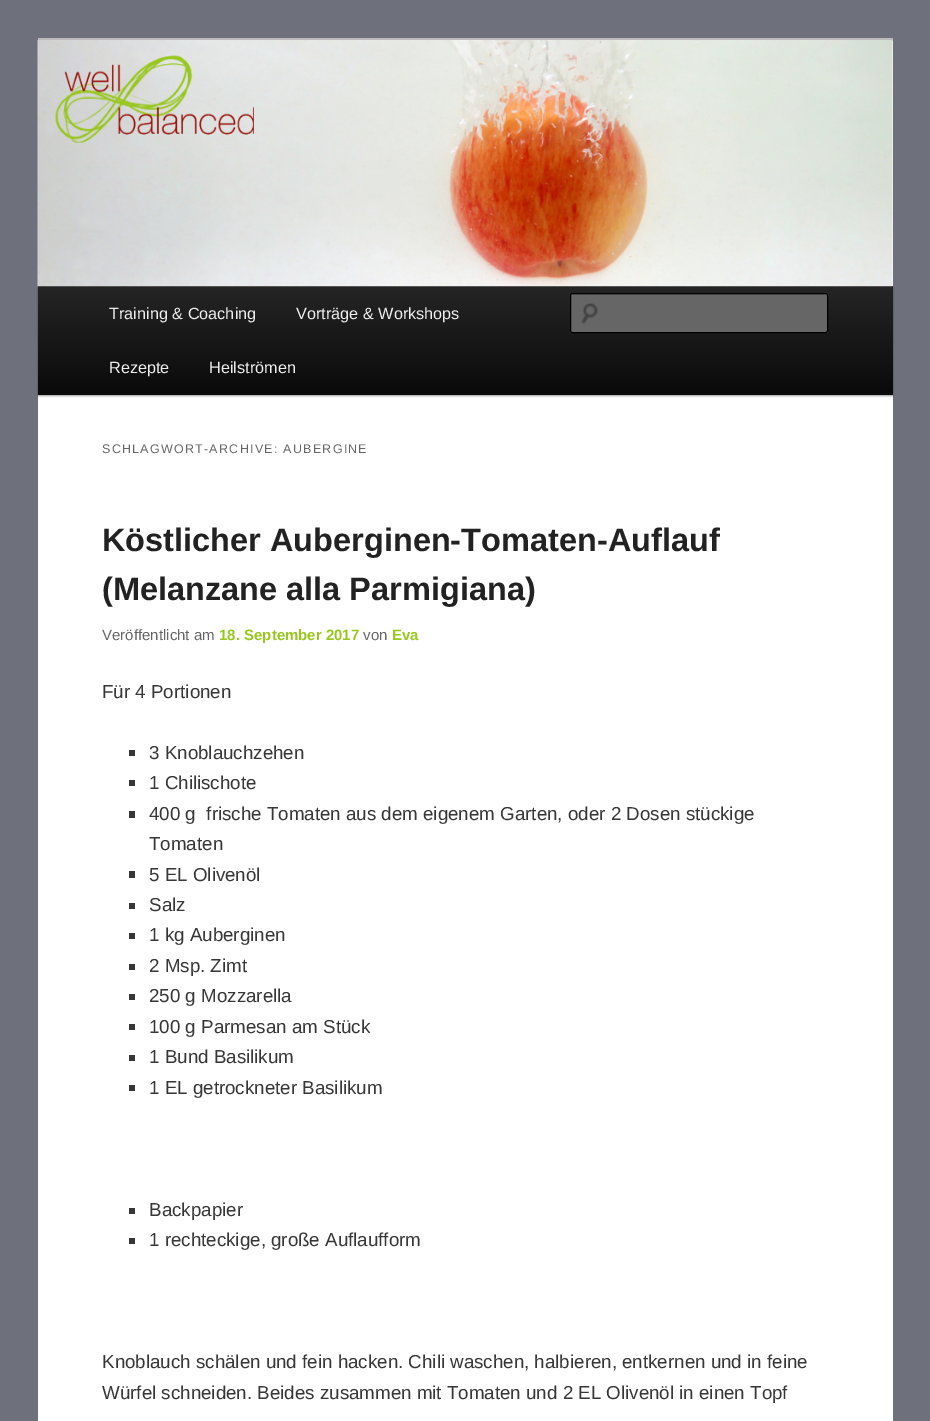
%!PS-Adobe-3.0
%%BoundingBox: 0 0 930 1421
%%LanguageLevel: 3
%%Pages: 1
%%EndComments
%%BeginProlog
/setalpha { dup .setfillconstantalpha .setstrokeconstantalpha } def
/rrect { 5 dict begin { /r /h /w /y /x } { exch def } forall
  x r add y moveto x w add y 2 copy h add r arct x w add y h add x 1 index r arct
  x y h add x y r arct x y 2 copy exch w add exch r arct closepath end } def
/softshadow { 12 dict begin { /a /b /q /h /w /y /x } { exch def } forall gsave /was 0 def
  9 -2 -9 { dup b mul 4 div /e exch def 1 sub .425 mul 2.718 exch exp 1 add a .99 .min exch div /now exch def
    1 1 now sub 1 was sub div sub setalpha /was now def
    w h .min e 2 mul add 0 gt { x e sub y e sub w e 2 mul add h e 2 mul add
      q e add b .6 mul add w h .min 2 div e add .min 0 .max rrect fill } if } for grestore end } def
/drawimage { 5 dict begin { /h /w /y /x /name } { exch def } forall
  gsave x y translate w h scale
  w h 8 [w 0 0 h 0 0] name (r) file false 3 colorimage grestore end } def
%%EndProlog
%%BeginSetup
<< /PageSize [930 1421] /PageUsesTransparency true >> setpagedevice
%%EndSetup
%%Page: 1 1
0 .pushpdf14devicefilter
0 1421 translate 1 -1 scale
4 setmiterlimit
0.431 0.439 0.486 setrgbcolor
0 0 930 1421 rectfill
1 setgray
38 41 855 1380 rectfill
0.733 setgray
38 38 855 3 rectfill
0 setgray
38 288 855 108 0 1 0.4 softshadow
gsave newpath 38 286 moveto 893 286 lineto 893 395 lineto 38 395 lineto closepath clip newpath
<< /ShadingType 2 /ColorSpace /DeviceRGB /Coords [465 286 465 395] /Extend [true true] /Function << /FunctionType 2 /Domain [0 1] /C0 [0.145 0.145 0.145] /C1 [0.039 0.039 0.039] /N 1 >> >> shfill grestore
(images/1.raw) 37 40 856 247 drawimage
0.4 setgray
570 293 258 40 2.5 rrect fill
(images/2.raw) 581 303 17 21 drawimage
0.361 setgray
newpath 572 295 moveto 825 295 lineto 826 296 lineto 826 294 lineto 572 294 lineto 571 294 571 295 571 296 curveto closepath fill
0 setgray
570.5 293.5 257 39 2 rrect stroke
0.216 setgray
129 750 6 6 rectfill
129 780 6 6 rectfill
129 811 6 7 rectfill
129 871 6 7 rectfill
129 903 6 6 rectfill
129 933 6 6 rectfill
129 964 6 6 rectfill
129 994 6 6 rectfill
129 1024 6 6 rectfill
129 1055 6 6 rectfill
129 1085 6 6 rectfill
129 1208 6 6 rectfill
129 1238 6 6 rectfill
/LiberationSans-Regular [16.25 0 0 -16.25 0 0] selectfont
0.933 setgray
109 319 moveto (Training & Coaching) show
296 319 moveto (Vorträge & Workshops) show
109 373 moveto (Rezepte) show
209 373 moveto (Heilströmen) show
/LiberationSans-Regular [12.5 0 0 -12.5 0 0] selectfont
0.4 setgray
102 453 moveto 1.25 0 (SCHLAGWORT-ARCHIVE: AUBERGINE) ashow
/LiberationSans-Bold [32.5 0 0 -32.5 0 0] selectfont
0.133 setgray
102 551 moveto (Köstlicher Auberginen-Tomaten-Auflauf) show
102 600 moveto (\(Melanzane alla Parmigiana\)) show
/LiberationSans-Regular [15 0 0 -15 0 0] selectfont
0.4 setgray
102 640 moveto (Veröffentlicht am) show
/LiberationSans-Bold [15 0 0 -15 0 0] selectfont
0.596 0.78 0.114 setrgbcolor
219 640 moveto (18. September 2017) show
/LiberationSans-Regular [15 0 0 -15 0 0] selectfont
0.4 setgray
363 640 moveto (von) show
/LiberationSans-Bold [15 0 0 -15 0 0] selectfont
0.596 0.78 0.114 setrgbcolor
392 640 moveto (Eva) show
/LiberationSans-Regular [18.75 0 0 -18.75 0 0] selectfont
0.216 setgray
102 698 moveto (Für 4 Portionen) show
149 759 moveto (3 Knoblauchzehen) show
149 789 moveto (1 Chilischote) show
149 820 moveto (400 g  frische Tomaten aus dem eigenem Garten, oder 2 Dosen stückige) show
149 850 moveto (Tomaten) show
149 881 moveto (5 EL Olivenöl) show
149 911 moveto (Salz) show
149 941 moveto (1 kg Auberginen) show
149 972 moveto (2 Msp. Zimt) show
149 1002 moveto (250 g Mozzarella) show
149 1033 moveto (100 g Parmesan am Stück) show
149 1063 moveto (1 Bund Basilikum) show
149 1094 moveto (1 EL getrockneter Basilikum) show
149 1216 moveto (Backpapier) show
149 1246 moveto (1 rechteckige, große Auflaufform) show
102 1368 moveto (Knoblauch schälen und fein hacken. Chili waschen, halbieren, entkernen und in feine) show
102 1399 moveto (Würfel schneiden. Beides zusammen mit Tomaten und 2 EL Olivenöl in einen Topf) show
.poppdf14devicefilter showpage
%%EOF
